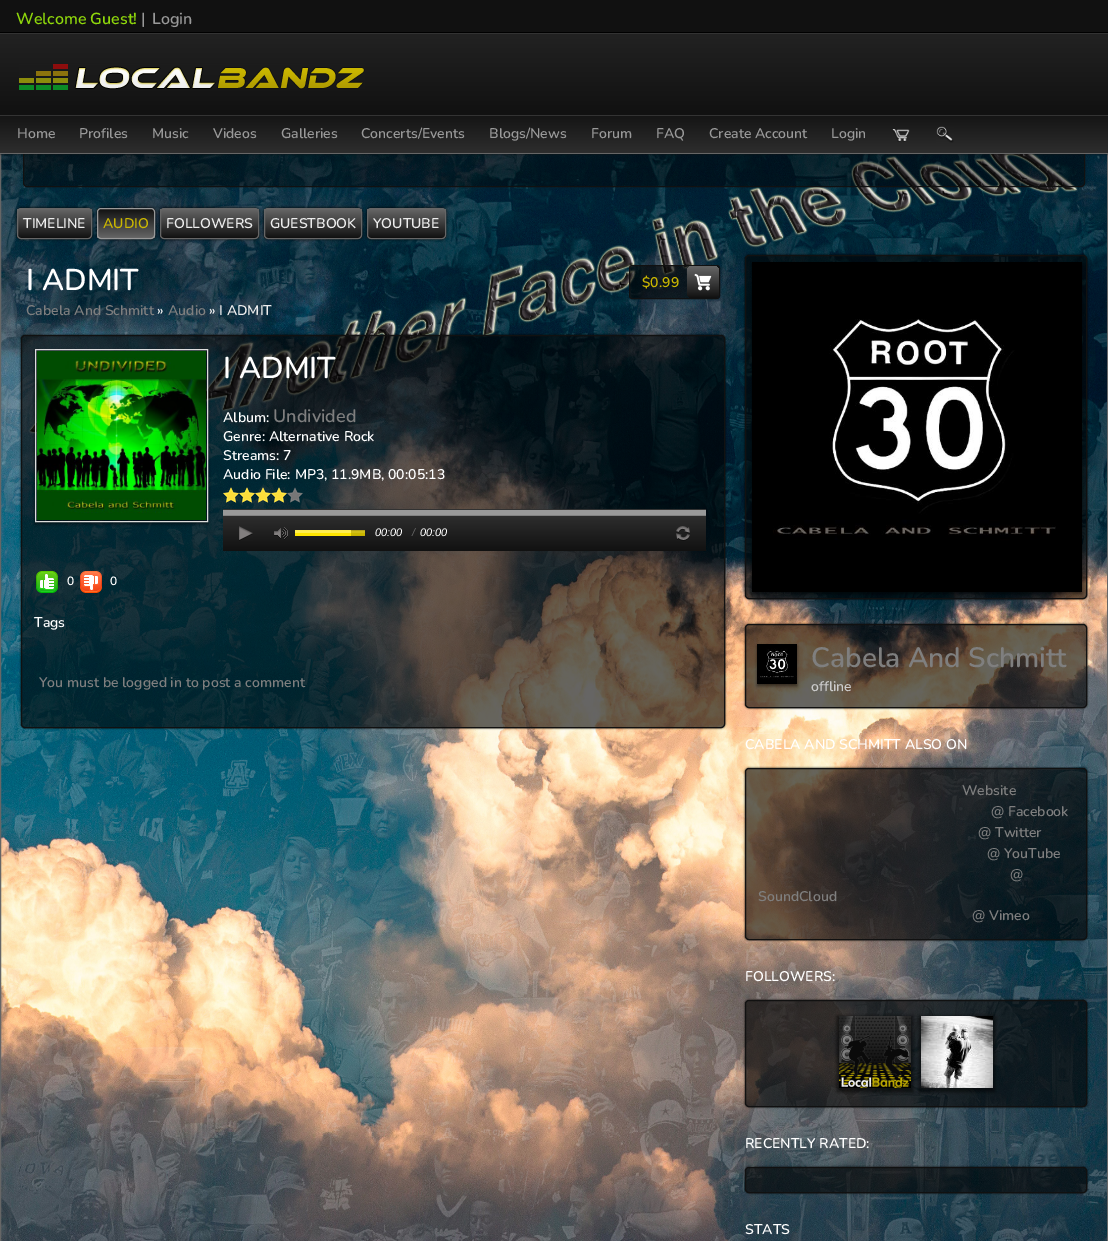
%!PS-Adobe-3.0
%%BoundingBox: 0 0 1108 1241
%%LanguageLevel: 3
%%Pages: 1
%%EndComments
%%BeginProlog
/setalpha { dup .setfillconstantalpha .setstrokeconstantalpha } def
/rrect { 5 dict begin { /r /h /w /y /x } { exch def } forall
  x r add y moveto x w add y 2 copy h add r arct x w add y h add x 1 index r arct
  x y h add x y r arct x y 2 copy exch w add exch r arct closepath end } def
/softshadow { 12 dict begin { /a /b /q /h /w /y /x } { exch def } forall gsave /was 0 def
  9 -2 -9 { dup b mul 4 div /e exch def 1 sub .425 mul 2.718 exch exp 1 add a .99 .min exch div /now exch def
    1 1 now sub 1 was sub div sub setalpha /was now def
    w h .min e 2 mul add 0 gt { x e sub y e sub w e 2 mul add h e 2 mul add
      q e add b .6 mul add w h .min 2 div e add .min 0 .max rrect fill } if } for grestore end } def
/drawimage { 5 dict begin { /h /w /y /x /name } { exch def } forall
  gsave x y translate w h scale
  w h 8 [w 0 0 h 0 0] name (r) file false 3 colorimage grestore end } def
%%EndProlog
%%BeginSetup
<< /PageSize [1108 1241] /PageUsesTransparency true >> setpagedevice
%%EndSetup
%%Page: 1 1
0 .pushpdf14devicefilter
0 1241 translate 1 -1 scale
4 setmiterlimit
1 setgray
0 0 1108 1241 rectfill
(images/1.raw) 1 154 1106 1087 drawimage
0.067 setgray
0 0 1108 32 rectfill
0 setgray
0 32 1108 1 rectfill
0.4 setgray
0.5 90.5 1107 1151 rectstroke
gsave newpath 0 34 moveto 1108 34 lineto 1108 115 lineto 0 115 lineto closepath clip newpath
<< /ShadingType 2 /ColorSpace /DeviceRGB /Coords [554 34 554 116] /Extend [true true] /Function << /FunctionType 2 /Domain [0 1] /C0 [0.133 0.133 0.133] /C1 [0.067 0.067 0.067] /N 1 >> >> shfill grestore
0.2 setgray
0 33 1108 1 rectfill
(images/2.raw) 19 64 346 26 drawimage
0.4 setalpha
0 setgray
23.5 123.5 1061 63 3.5 rrect fill
1 setalpha
0.067 setgray
23.5 123.5 1061 63 3.5 rrect stroke
0 115 1108 39 0 1 1 softshadow
gsave newpath 0 116 moveto 1108 116 lineto 1108 153 lineto 0 153 lineto closepath clip newpath
<< /ShadingType 2 /ColorSpace /DeviceRGB /Coords [554 116 554 153] /Extend [true true] /Function << /FunctionType 2 /Domain [0 1] /C0 [0.082 0.082 0.082] /C1 [0.18 0.18 0.18] /N 1 >> >> shfill grestore
0.2 setgray
0 115 1108 1 rectfill
0.4 setgray
0 153 1108 1 rectfill
(images/3.raw) 892 129 18 13 drawimage
(images/4.raw) 936 126 18 17 drawimage
0 setgray
17 208 75 31 4 1.5 1 softshadow
gsave
17 208 75 31 4 rrect clip newpath
gsave newpath 17 209 moveto 92 209 lineto 92 238 lineto 17 238 lineto closepath clip newpath
<< /ShadingType 2 /ColorSpace /DeviceRGB /Coords [18 209 18 238] /Extend [true true] /Function << /FunctionType 2 /Domain [0 1] /C0 [0.4 0.4 0.4] /C1 [0.067 0.067 0.067] /N 1 >> >> shfill grestore
grestore
0.4 setgray
17.5 208.5 74 30 3.5 rrect stroke
0 setgray
97 208 58 31 4 1.5 1 softshadow
gsave
97 208 58 31 4 rrect clip newpath
gsave newpath 97 209 moveto 155 209 lineto 155 238 lineto 97 238 lineto closepath clip newpath
<< /ShadingType 2 /ColorSpace /DeviceRGB /Coords [98 209 98 238] /Extend [true true] /Function << /FunctionType 2 /Domain [0 1] /C0 [0.067 0.067 0.067] /C1 [0.4 0.4 0.4] /N 1 >> >> shfill grestore
grestore
0.6 setgray
97.5 208.5 57 30 3.5 rrect stroke
0 setgray
160 208 99 31 4 1.5 1 softshadow
gsave
160 208 99 31 4 rrect clip newpath
gsave newpath 160 209 moveto 259 209 lineto 259 238 lineto 160 238 lineto closepath clip newpath
<< /ShadingType 2 /ColorSpace /DeviceRGB /Coords [161 209 161 238] /Extend [true true] /Function << /FunctionType 2 /Domain [0 1] /C0 [0.4 0.4 0.4] /C1 [0.067 0.067 0.067] /N 1 >> >> shfill grestore
grestore
0.4 setgray
160.5 208.5 98 30 3.5 rrect stroke
0 setgray
264 208 98 31 4 1.5 1 softshadow
gsave
264 208 98 31 4 rrect clip newpath
gsave newpath 264 209 moveto 362 209 lineto 362 238 lineto 264 238 lineto closepath clip newpath
<< /ShadingType 2 /ColorSpace /DeviceRGB /Coords [265 209 265 238] /Extend [true true] /Function << /FunctionType 2 /Domain [0 1] /C0 [0.4 0.4 0.4] /C1 [0.067 0.067 0.067] /N 1 >> >> shfill grestore
grestore
0.4 setgray
264.5 208.5 97 30 3.5 rrect stroke
0 setgray
367 208 79 31 4 1.5 1 softshadow
gsave
367 208 79 31 4 rrect clip newpath
gsave newpath 367 209 moveto 446 209 lineto 446 238 lineto 367 238 lineto closepath clip newpath
<< /ShadingType 2 /ColorSpace /DeviceRGB /Coords [368 209 368 238] /Extend [true true] /Function << /FunctionType 2 /Domain [0 1] /C0 [0.4 0.4 0.4] /C1 [0.067 0.067 0.067] /N 1 >> >> shfill grestore
grestore
0.4 setgray
367.5 208.5 78 30 3.5 rrect stroke
0.6 setalpha
0 setgray
629.5 265.5 90 33 2.5 rrect fill
1 setalpha
0.067 setgray
629.5 265.5 90 33 2.5 rrect stroke
gsave 687 266 32 32 5 rrect clip newpath
<< /ShadingType 2 /ColorSpace /DeviceRGB /Coords [687 266 687 298] /Extend [true true] /Function << /FunctionType 2 /Domain [0 1] /C0 [0.4 0.4 0.4] /C1 [0.067 0.067 0.067] /N 1 >> >> shfill grestore
(images/5.raw) 694 273 18 18 drawimage
gsave
newpath 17 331 moveto 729 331 lineto 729 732 lineto 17 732 lineto closepath 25 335 moveto 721 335 lineto 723 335 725 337 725 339 curveto 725 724 lineto 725 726 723 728 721 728 curveto 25 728 lineto 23 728 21 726 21 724 curveto 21 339 lineto 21 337 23 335 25 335 curveto closepath eoclip newpath
0 setgray
21 335 704 393 4 1 1 softshadow
grestore
0.6 setalpha
0 setgray
21.5 335.5 703 392 3.5 rrect fill
1 setalpha
0.067 setgray
21.5 335.5 703 392 3.5 rrect stroke
0 setgray
35 351 173 173 0 1.5 0.5 softshadow
0.867 setgray
35.5 349.5 172 172 rectstroke
(images/6.raw) 37 351 169 169 drawimage
(images/7.raw) 223 487 80 16 drawimage
(images/8.raw) 223 487 64 16 drawimage
gsave newpath 223 509 moveto 706 509 lineto 706 551 lineto 223 551 lineto closepath clip newpath
<< /ShadingType 2 /ColorSpace /DeviceRGB /Coords [465 509 465 551] /Extend [true true] /Function << /FunctionType 2 /Domain [0 1] /C0 [0.2 0.2 0.2] /C1 [0.067 0.067 0.067] /N 1 >> >> shfill grestore
0.51 setgray
223 515 483 1 rectfill
0.6 setgray
223 510 483 5 rectfill
(images/9.raw) 239 526 14 15 drawimage
(images/10.raw) 274 527 14 13 drawimage
(images/11.raw) 295 530 70 6 drawimage
(images/12.raw) 295 530 56 6 drawimage
(images/13.raw) 676 526 14 15 drawimage
(images/14.raw) 36 571 22 22 drawimage
(images/15.raw) 80 571 22 22 drawimage
gsave
newpath 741 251 moveto 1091 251 lineto 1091 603 lineto 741 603 lineto closepath 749 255 moveto 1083 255 lineto 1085 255 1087 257 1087 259 curveto 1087 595 lineto 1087 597 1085 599 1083 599 curveto 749 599 lineto 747 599 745 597 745 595 curveto 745 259 lineto 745 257 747 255 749 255 curveto closepath eoclip newpath
0 setgray
745 255 342 344 4 1 1 softshadow
grestore
0.6 setalpha
0 setgray
745.5 255.5 341 343 3.5 rrect fill
1 setalpha
0.067 setgray
745.5 255.5 341 343 3.5 rrect stroke
0 setgray
752 264 330 330 0 1.5 0.5 softshadow
(images/16.raw) 752 262 330 330 drawimage
gsave
newpath 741 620 moveto 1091 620 lineto 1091 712 lineto 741 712 lineto closepath 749 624 moveto 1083 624 lineto 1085 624 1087 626 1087 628 curveto 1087 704 lineto 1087 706 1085 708 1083 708 curveto 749 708 lineto 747 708 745 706 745 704 curveto 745 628 lineto 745 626 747 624 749 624 curveto closepath eoclip newpath
745 624 342 84 4 1 1 softshadow
grestore
0.6 setalpha
745.5 624.5 341 83 3.5 rrect fill
1 setalpha
0.067 setgray
745.5 624.5 341 83 3.5 rrect stroke
0 setgray
757 646 40 40 0 1.5 0.5 softshadow
(images/17.raw) 757 644 40 40 drawimage
gsave
newpath 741 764 moveto 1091 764 lineto 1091 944 lineto 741 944 lineto closepath 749 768 moveto 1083 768 lineto 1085 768 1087 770 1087 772 curveto 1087 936 lineto 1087 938 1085 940 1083 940 curveto 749 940 lineto 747 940 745 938 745 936 curveto 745 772 lineto 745 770 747 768 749 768 curveto closepath eoclip newpath
745 768 342 172 4 1 1 softshadow
grestore
0.6 setalpha
745.5 768.5 341 171 3.5 rrect fill
1 setalpha
0.067 setgray
745.5 768.5 341 171 3.5 rrect stroke
gsave
newpath 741 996 moveto 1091 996 lineto 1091 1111 lineto 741 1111 lineto closepath 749 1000 moveto 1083 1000 lineto 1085 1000 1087 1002 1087 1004 curveto 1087 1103 lineto 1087 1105 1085 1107 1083 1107 curveto 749 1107 lineto 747 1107 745 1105 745 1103 curveto 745 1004 lineto 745 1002 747 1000 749 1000 curveto closepath eoclip newpath
0 setgray
745 1000 342 107 4 1 1 softshadow
grestore
0.6 setalpha
0 setgray
745.5 1000.5 341 106 3.5 rrect fill
1 setalpha
0.067 setgray
745.5 1000.5 341 106 3.5 rrect stroke
0 setgray
837 1016 76 76 0 1.5 0.5 softshadow
919 1016 76 76 0 1.5 0.5 softshadow
(images/18.raw) 839 1016 72 72 drawimage
(images/19.raw) 921 1016 72 72 drawimage
gsave
newpath 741 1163 moveto 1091 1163 lineto 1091 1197 lineto 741 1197 lineto closepath 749 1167 moveto 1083 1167 lineto 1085 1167 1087 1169 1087 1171 curveto 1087 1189 lineto 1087 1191 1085 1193 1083 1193 curveto 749 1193 lineto 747 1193 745 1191 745 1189 curveto 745 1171 lineto 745 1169 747 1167 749 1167 curveto closepath eoclip newpath
745 1167 342 26 4 1 1 softshadow
grestore
0.6 setalpha
745.5 1167.5 341 25 3.5 rrect fill
1 setalpha
0.067 setgray
745.5 1167.5 341 25 3.5 rrect stroke
/Nunito-ExtraLight [16 0 0 -16 0 0] selectfont
0.561 0.847 0.043 setrgbcolor
16 24 moveto (Welcome Guest!) show
0.6 setgray
141 24 moveto (|) show
152 24 moveto (Login) show
/Nunito-ExtraLight [14 0 0 -14 0 0] selectfont
17 138 moveto (Home) show
79 138 moveto (Profiles) show
152 138 moveto (Music) show
213 138 moveto (Videos) show
281 138 moveto (Galleries) show
361 138 moveto (Concerts/Events) show
489 138 moveto (Blogs/News) show
591 138 moveto (Forum) show
656 138 moveto (FAQ) show
709 138 moveto (Create Account) show
831 138 moveto (Login) show
0.929 setgray
23 228 moveto (TIMELINE) show
0.796 0.718 0 setrgbcolor
103 228 moveto (AUDIO) show
0.929 setgray
166 228 moveto (FOLLOWERS) show
270 228 moveto (GUESTBOOK) show
373 228 moveto (YOUTUBE) show
/Nunito-ExtraLight [30 0 0 -30 0 0] selectfont
1 setgray
26 290 moveto (I ADMIT) show
/Nunito-ExtraLight [14 0 0 -14 0 0] selectfont
0.796 0.718 0 setrgbcolor
642 287 moveto ($0.99) show
0.498 setgray
26 315 moveto (Cabela And Schmitt) show
0.929 setgray
157 315 moveto (») show
0.498 setgray
168 315 moveto (Audio) show
0.929 setgray
209 315 moveto (» I ADMIT) show
/Nunito-ExtraLight [30 0 0 -30 0 0] selectfont
1 setgray
223 378 moveto (I ADMIT) show
/Nunito-ExtraLight [14 0 0 -14 0 0] selectfont
223 422 moveto (Album:) show
/Nunito-ExtraLight [18 0 0 -18 0 0] selectfont
0.498 setgray
273 422 moveto (Undivided) show
/Nunito-ExtraLight [14 0 0 -14 0 0] selectfont
1 setgray
223 441 moveto (Genre: Alternative Rock) show
223 460 moveto (Streams: 7) show
223 479 moveto (Audio File: MP3, 11.9MB, 00:05:13) show
/LiberationSans-Italic [11 0 0 -11 0 0] selectfont
375 536 moveto (00:00) show
0.4 setgray
412 536 moveto (/) show
1 setgray
420 536 moveto (00:00) show
/Nunito-ExtraLight [12 0 0 -12 0 0] selectfont
67 585 moveto (0) show
110 585 moveto (0) show
/Nunito-ExtraLight [14 0 0 -14 0 0] selectfont
34 627 moveto (Tags) show
0.498 setgray
39 687 moveto (You must be logged in to post a comment) show
/Nunito-ExtraLight [28 0 0 -28 0 0] selectfont
811 667 moveto (Cabela And Schmitt) show
/Nunito-ExtraLight [14 0 0 -14 0 0] selectfont
0.8 setgray
811 691 moveto (offline) show
1 setgray
745 749 moveto (CABELA AND SCHMITT ALSO ON) show
0.498 setgray
962 795 moveto (Website) show
991 816 moveto (@ Facebook) show
978 837 moveto (@ Twitter) show
987 858 moveto (@ YouTube) show
1010 879 moveto (@) show
758 901 moveto (SoundCloud) show
972 920 moveto (@ Vimeo) show
1 setgray
745 981 moveto (FOLLOWERS:) show
745 1148 moveto (RECENTLY RATED:) show
745 1234 moveto (STATS) show
.poppdf14devicefilter showpage
%%EOF
